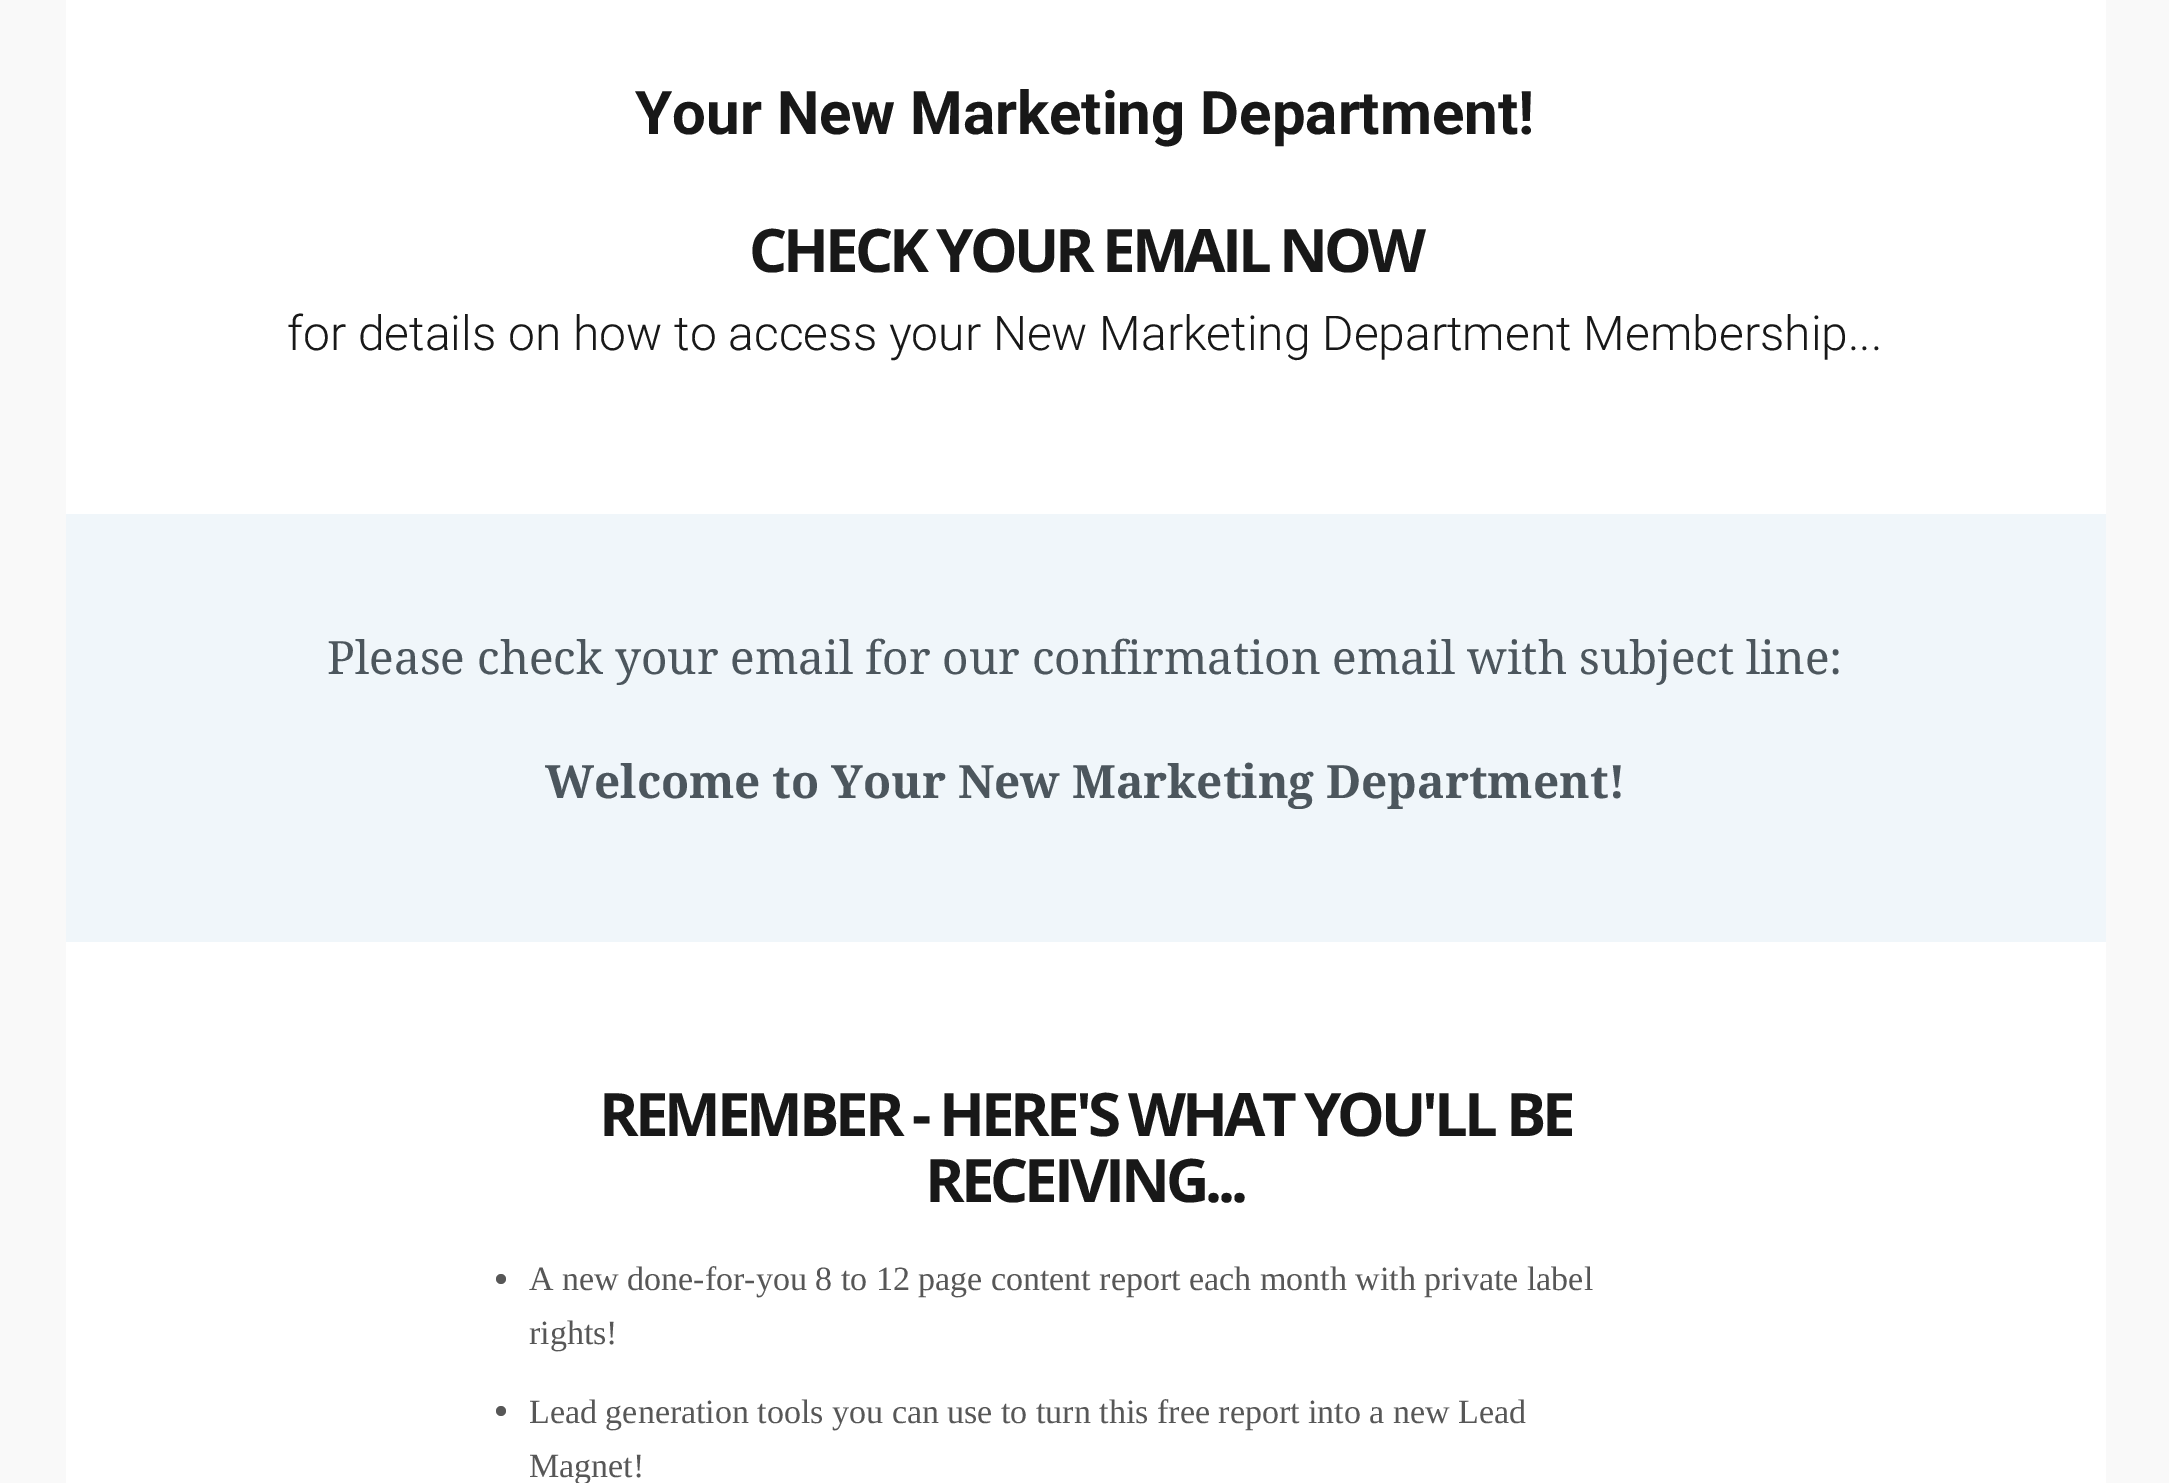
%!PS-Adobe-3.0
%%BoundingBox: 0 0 2169 1483
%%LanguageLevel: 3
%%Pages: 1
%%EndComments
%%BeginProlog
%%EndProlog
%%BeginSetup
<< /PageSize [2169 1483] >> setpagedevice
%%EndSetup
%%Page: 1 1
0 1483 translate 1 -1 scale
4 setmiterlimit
0.976 setgray
0 0 2169 1483 rectfill
1 setgray
66 0 2040 1483 rectfill
0.941 0.965 0.98 setrgbcolor
66 514 2040 428 rectfill
0.341 setgray
newpath 501 1279 5 0 360 arc closepath fill
newpath 501 1411 5 0 360 arc closepath fill
/Roboto-Bold [60 0 0 -60 0 0] selectfont
0.094 setgray
635 134 moveto (Your New Marketing Department!) show
/OpenSans-Bold [60 0 0 -60 0 0] selectfont
749 272 moveto -4 0 (CHECK YOUR EMAIL NOW) ashow
/Roboto-Light [48 0 0 -48 0 0] selectfont
287 350 moveto (for details on how to access your New Marketing Department Membership...) show
/DroidSerif-Regular [46 0 0 -46 0 0] selectfont
0.298 0.337 0.365 setrgbcolor
327 674 moveto (Please check your email for our confirmation email with subject line:) show
/DroidSerif-Bold [46 0 0 -46 0 0] selectfont
545 798 moveto (Welcome to Your New Marketing Department!) show
/OpenSans-Bold [60 0 0 -60 0 0] selectfont
0.094 setgray
599 1136 moveto -4 0 (REMEMBER - HERE'S WHAT YOU'LL BE) ashow
925 1202 moveto -4 0 (RECEIVING...) ashow
/LiberationSerif-Regular [34 0 0 -34 0 0] selectfont
0.341 setgray
529 1290 moveto (A new done-for-you 8 to 12 page content report each month with private label) show
529 1344 moveto (rights!) show
529 1423 moveto (Lead generation tools you can use to turn this free report into a new Lead) show
529 1477 moveto (Magnet!) show
showpage
%%EOF
